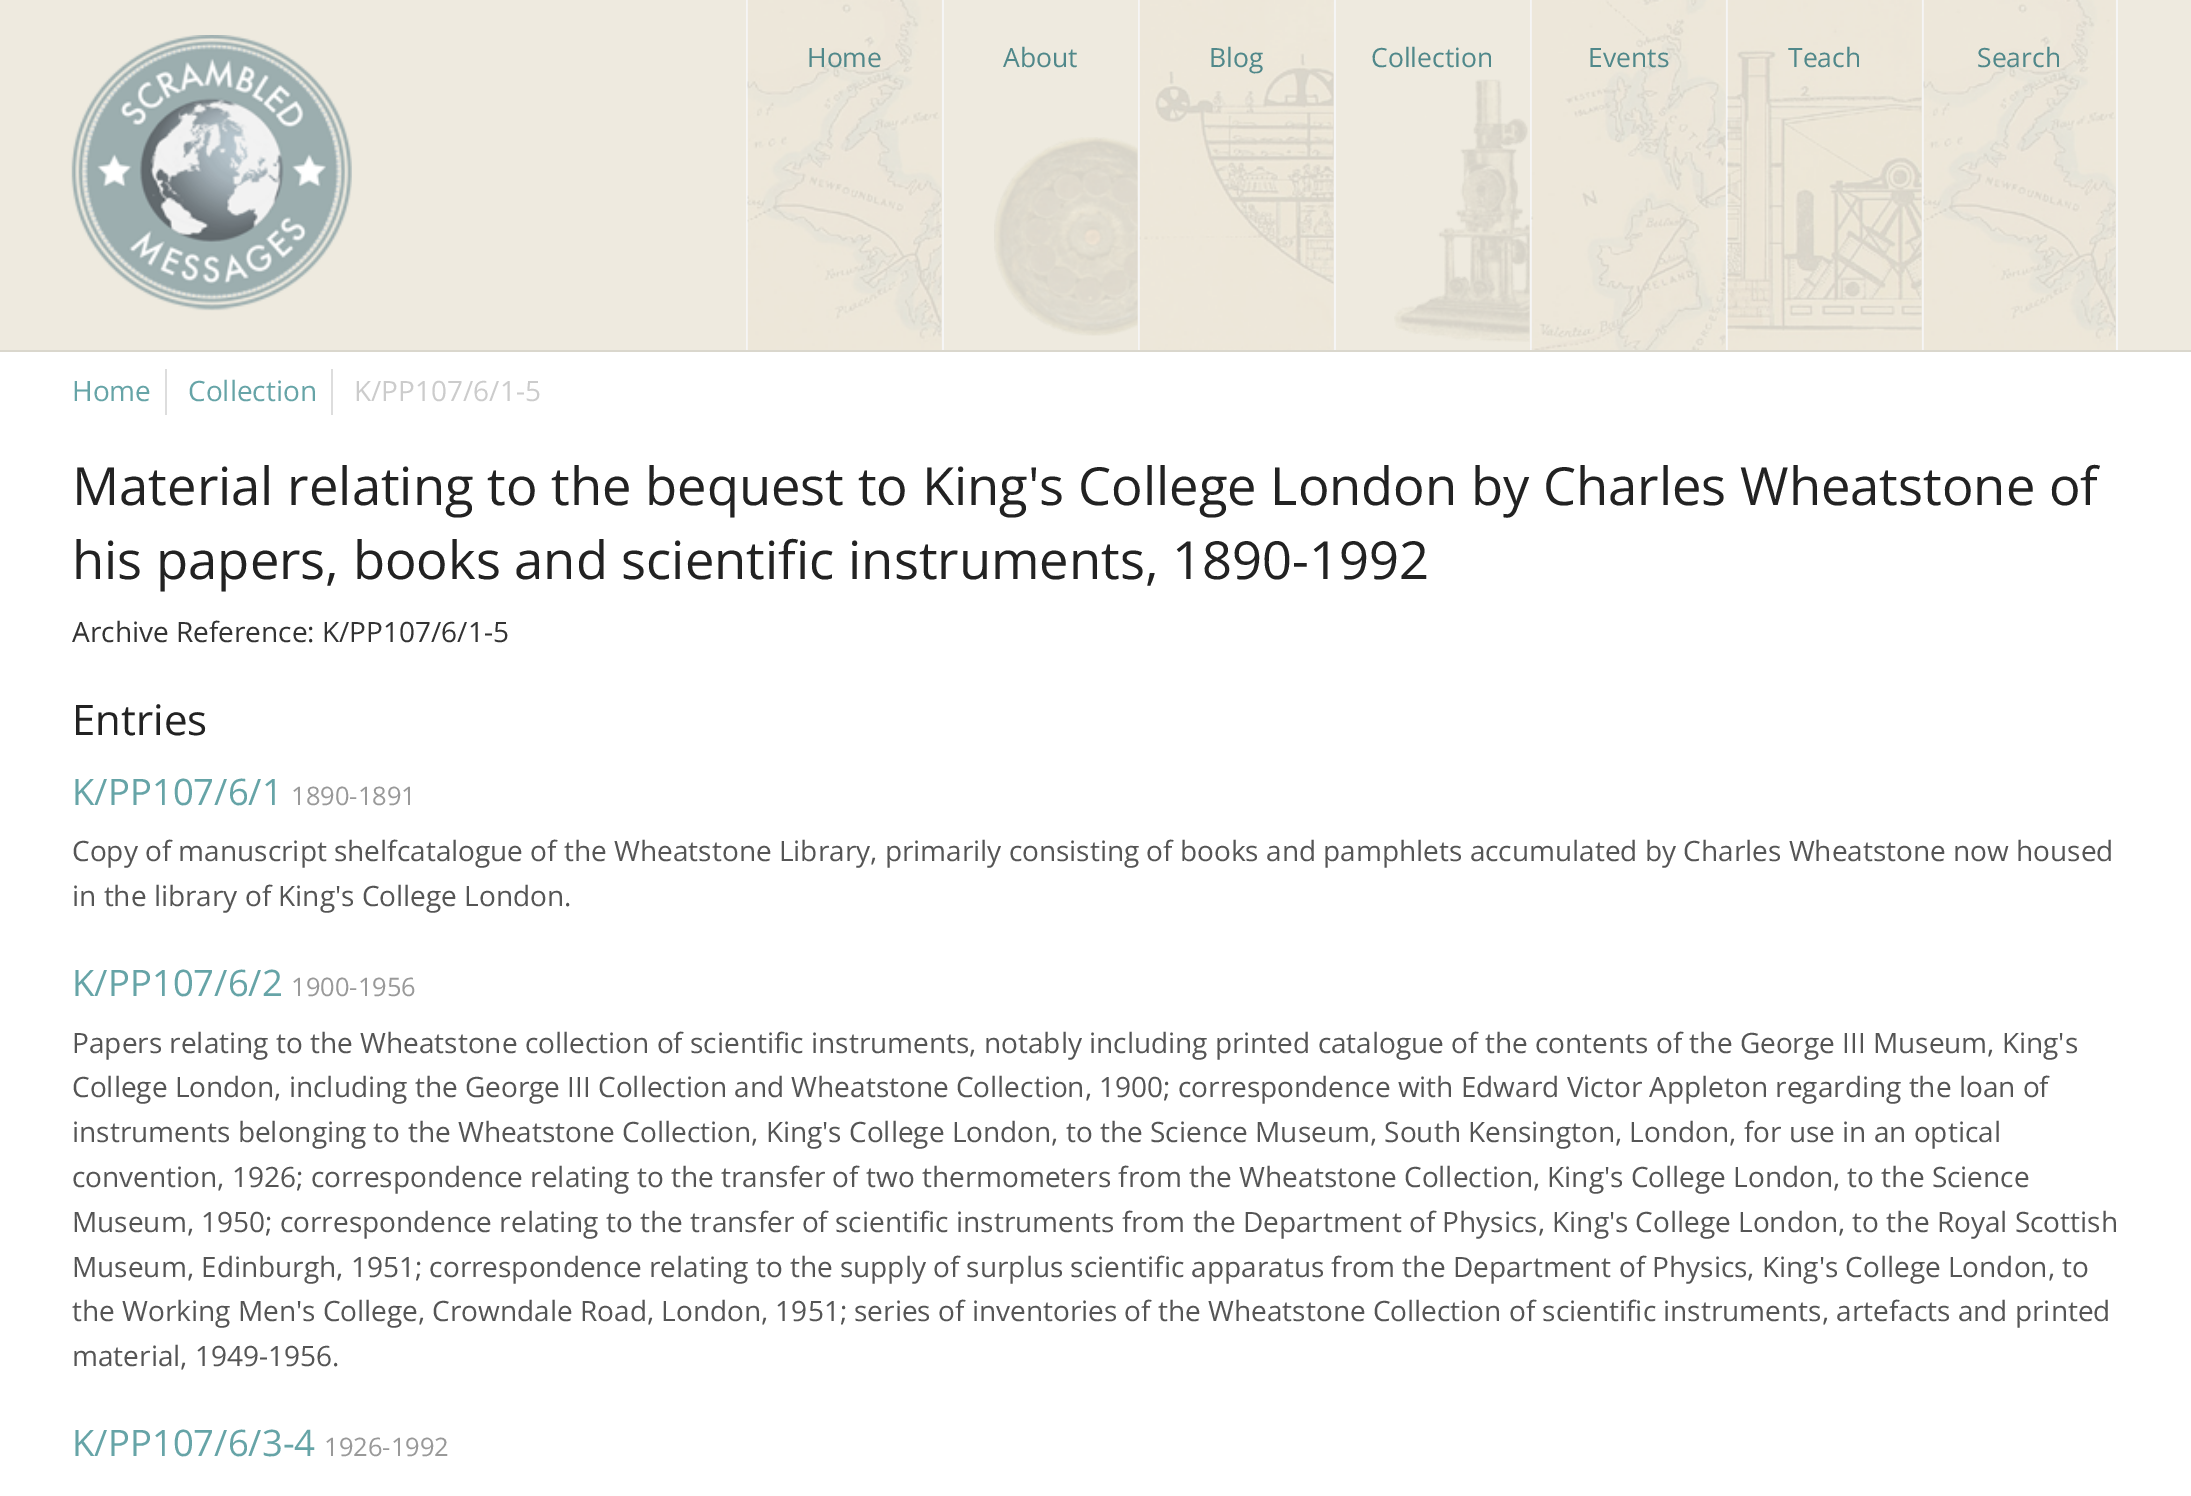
%!PS-Adobe-3.0
%%BoundingBox: 0 0 2191 1496
%%LanguageLevel: 3
%%Pages: 1
%%EndComments
%%BeginProlog
/drawimage { 5 dict begin { /h /w /y /x /name } { exch def } forall
  gsave x y translate w h scale
  w h 8 [w 0 0 h 0 0] name (r) file false 3 colorimage grestore end } def
%%EndProlog
%%BeginSetup
<< /PageSize [2191 1496] >> setpagedevice
%%EndSetup
%%Page: 1 1
0 1496 translate 1 -1 scale
4 setmiterlimit
1 setgray
0 0 2191 1496 rectfill
0.933 0.918 0.875 setrgbcolor
0 0 2191 350 rectfill
0.855 0.843 0.804 setrgbcolor
0 350 2191 2 rectfill
(images/1.raw) 71 35 281 276 drawimage
0.961 setgray
746 0 2 350 rectfill
(images/2.raw) 747 0 195 350 drawimage
942 0 2 350 rectfill
(images/3.raw) 994 137 144 199 drawimage
1138 0 2 350 rectfill
(images/4.raw) 1139 0 195 350 drawimage
1334 0 2 350 rectfill
(images/5.raw) 1394 79 136 263 drawimage
1530 0 2 350 rectfill
(images/6.raw) 1531 0 195 350 drawimage
1726 0 2 350 rectfill
(images/7.raw) 1727 0 195 350 drawimage
2116 0 2 350 rectfill
1922 0 2 350 rectfill
(images/8.raw) 1923 0 193 350 drawimage
0.867 setgray
165 369 2 46 rectfill
331 369 2 46 rectfill
/OpenSans-Regular [26.5 0 0 -26.5 0 0] selectfont
0.314 0.533 0.541 setrgbcolor
807 67 moveto (Home) show
1003 67 moveto (About) show
1209 67 moveto (Blog) show
1371 67 moveto (Collection) show
1588 67 moveto (Events) show
1788 67 moveto (Teach) show
1977 67 moveto (Search) show
/OpenSans-Regular [28 0 0 -28 0 0] selectfont
0.4 0.643 0.655 setrgbcolor
72 401 moveto (Home) show
188 401 moveto (Collection) show
0.8 setgray
354 401 moveto (K/PP107/6/1-5) show
/OpenSans-Regular [52.5 0 0 -52.5 0 0] selectfont
0.133 setgray
72 505 moveto (Material relating to the bequest to King's College London by Charles Wheatstone of) show
72 579 moveto (his papers, books and scientific instruments, 1890-1992) show
/OpenSans-Regular [28 0 0 -28 0 0] selectfont
0.2 setgray
72 642 moveto (Archive Reference: K/PP107/6/1-5) show
/OpenSans-Regular [42 0 0 -42 0 0] selectfont
0.133 setgray
72 735 moveto (Entries) show
/OpenSans-Regular [36.5 0 0 -36.5 0 0] selectfont
0.4 0.643 0.655 setrgbcolor
72 805 moveto (K/PP107/6/1) show
/OpenSans-Regular [25.5 0 0 -25.5 0 0] selectfont
0.6 setgray
291 805 moveto (1890-1891) show
/OpenSans-Regular [28 0 0 -28 0 0] selectfont
0.333 setgray
72 861 moveto (Copy of manuscript shelfcatalogue of the Wheatstone Library, primarily consisting of books and pamphlets accumulated by Charles Wheatstone now housed) show
72 906 moveto (in the library of King's College London.) show
/OpenSans-Regular [36.5 0 0 -36.5 0 0] selectfont
0.4 0.643 0.655 setrgbcolor
72 996 moveto (K/PP107/6/2) show
/OpenSans-Regular [25.5 0 0 -25.5 0 0] selectfont
0.6 setgray
291 996 moveto (1900-1956) show
/OpenSans-Regular [28 0 0 -28 0 0] selectfont
0.333 setgray
72 1053 moveto (Papers relating to the Wheatstone collection of scientific instruments, notably including printed catalogue of the contents of the George III Museum, King's) show
72 1097 moveto (College London, including the George III Collection and Wheatstone Collection, 1900; correspondence with Edward Victor Appleton regarding the loan of) show
72 1142 moveto (instruments belonging to the Wheatstone Collection, King's College London, to the Science Museum, South Kensington, London, for use in an optical) show
72 1187 moveto (convention, 1926; correspondence relating to the transfer of two thermometers from the Wheatstone Collection, King's College London, to the Science) show
72 1232 moveto (Museum, 1950; correspondence relating to the transfer of scientific instruments from the Department of Physics, King's College London, to the Royal Scottish) show
72 1277 moveto (Museum, Edinburgh, 1951; correspondence relating to the supply of surplus scientific apparatus from the Department of Physics, King's College London, to) show
72 1321 moveto (the Working Men's College, Crowndale Road, London, 1951; series of inventories of the Wheatstone Collection of scientific instruments, artefacts and printed) show
72 1366 moveto (material, 1949-1956.) show
/OpenSans-Regular [36.5 0 0 -36.5 0 0] selectfont
0.4 0.643 0.655 setrgbcolor
72 1456 moveto (K/PP107/6/3-4) show
/OpenSans-Regular [25.5 0 0 -25.5 0 0] selectfont
0.6 setgray
324 1456 moveto (1926-1992) show
showpage
%%EOF
